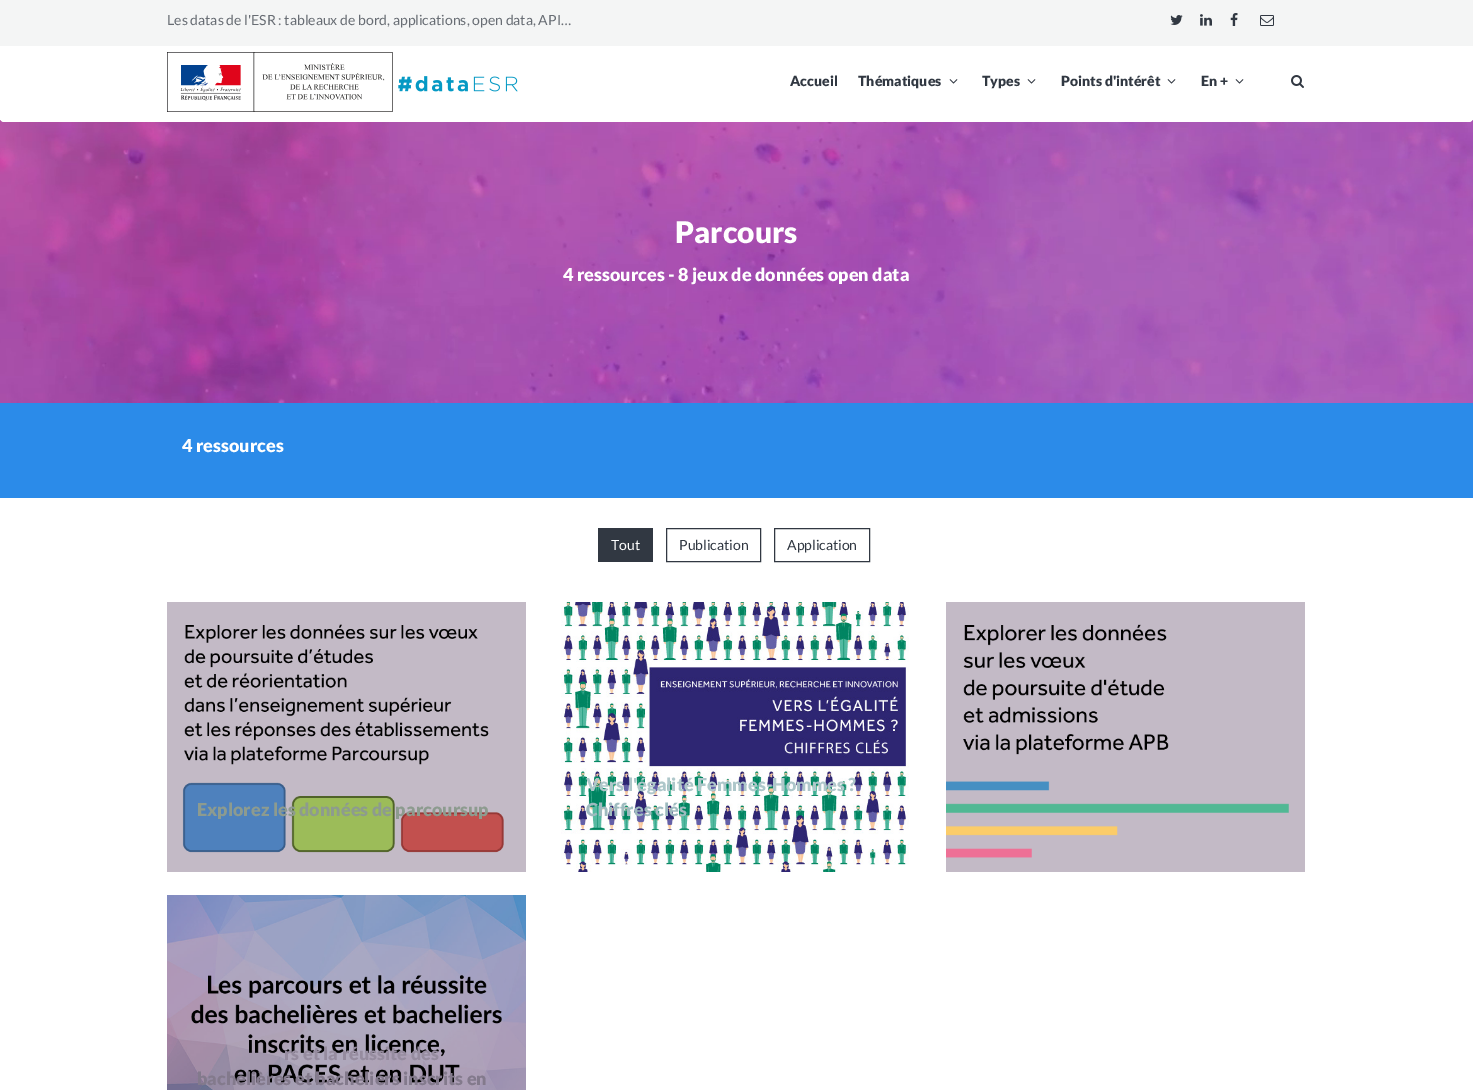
%!PS-Adobe-3.0
%%BoundingBox: 0 0 1473 1090
%%LanguageLevel: 3
%%Pages: 1
%%EndComments
%%BeginProlog
/rrect { 5 dict begin { /r /h /w /y /x } { exch def } forall
  x r add y moveto x w add y 2 copy h add r arct x w add y h add x 1 index r arct
  x y h add x y r arct x y 2 copy exch w add exch r arct closepath end } def
/drawimage { 5 dict begin { /h /w /y /x /name } { exch def } forall
  gsave x y translate w h scale
  w h 8 [w 0 0 h 0 0] name (r) file false 3 colorimage grestore end } def
%%EndProlog
%%BeginSetup
<< /PageSize [1473 1090] >> setpagedevice
%%EndSetup
%%Page: 1 1
0 1090 translate 1 -1 scale
4 setmiterlimit
1 setgray
0 0 1473 1090 rectfill
(images/9.raw) 0 120 1473 283 drawimage
0 40 1473 82 4 rrect fill
0.957 0.961 0.961 setrgbcolor
0 0 1473 46 rectfill
(images/1.raw) 1170 15 13 10 drawimage
(images/2.raw) 1200 14 12 12 drawimage
(images/3.raw) 1230 13 8 13 drawimage
(images/4.raw) 1260 15 14 11 drawimage
(images/5.raw) 167 52 226 60 drawimage
(images/6.raw) 398 76 120 16 drawimage
(images/7.raw) 949 79 9 5 drawimage
(images/7.raw) 1027 79 9 5 drawimage
(images/7.raw) 1167 79 9 5 drawimage
(images/7.raw) 1235 79 9 5 drawimage
(images/8.raw) 1291 75 13 13 drawimage
0.169 0.545 0.914 setrgbcolor
0 403 1473 95 rectfill
0.192 0.22 0.259 setrgbcolor
598 528 55 34 rectfill
666.5 528.5 94 33 rectstroke
774.5 528.5 95 33 rectstroke
(images/10.raw) 167 602 359 270 drawimage
(images/11.raw) 561 602 348 270 drawimage
(images/12.raw) 946 602 359 270 drawimage
(images/13.raw) 167 895 359 195 drawimage
/Lato-Regular [14 0 0 -14 0 0] selectfont
0.408 0.427 0.455 setrgbcolor
167 25 moveto (Les datas de l'ESR : tableaux de bord, applications, open data, API…) show
/Lato-Black [14 0 0 -14 0 0] selectfont
0.192 0.22 0.259 setrgbcolor
790 86 moveto (Accueil) show
858 86 moveto (Thématiques) show
982 86 moveto (Types) show
1061 86 moveto (Points d'intérêt) show
1201 86 moveto (En +) show
/Lato-Black [30 0 0 -30 0 0] selectfont
1 setgray
675 243 moveto (Parcours) show
/Lato-Black [18 0 0 -18 0 0] selectfont
563 281 moveto (4 ressources - 8 jeux de données open data) show
182 452 moveto (4 ressources) show
/Lato-Regular [14 0 0 -14 0 0] selectfont
611 550 moveto (Tout) show
0.192 0.22 0.259 setrgbcolor
679 550 moveto (Publication) show
787 550 moveto (Application) show
/Lato-Black [18 0 0 -18 0 0] selectfont
0.553 0.608 0.561 setrgbcolor
197 816 moveto (Explorez les données de parcoursup) show
0.682 0.78 0.792 setrgbcolor
586 791 moveto (Vers l'égalité Femmes-Hommes ?) show
0.62 0.733 0.749 setrgbcolor
586 816 moveto (Chiffres clés) show
0.588 0.549 0.624 setrgbcolor
284 1060 moveto (rs et la réussite des) show
0.514 0.478 0.549 setrgbcolor
197 1085 moveto (bachelières et bacheliers inscrits en) show
showpage
%%EOF
